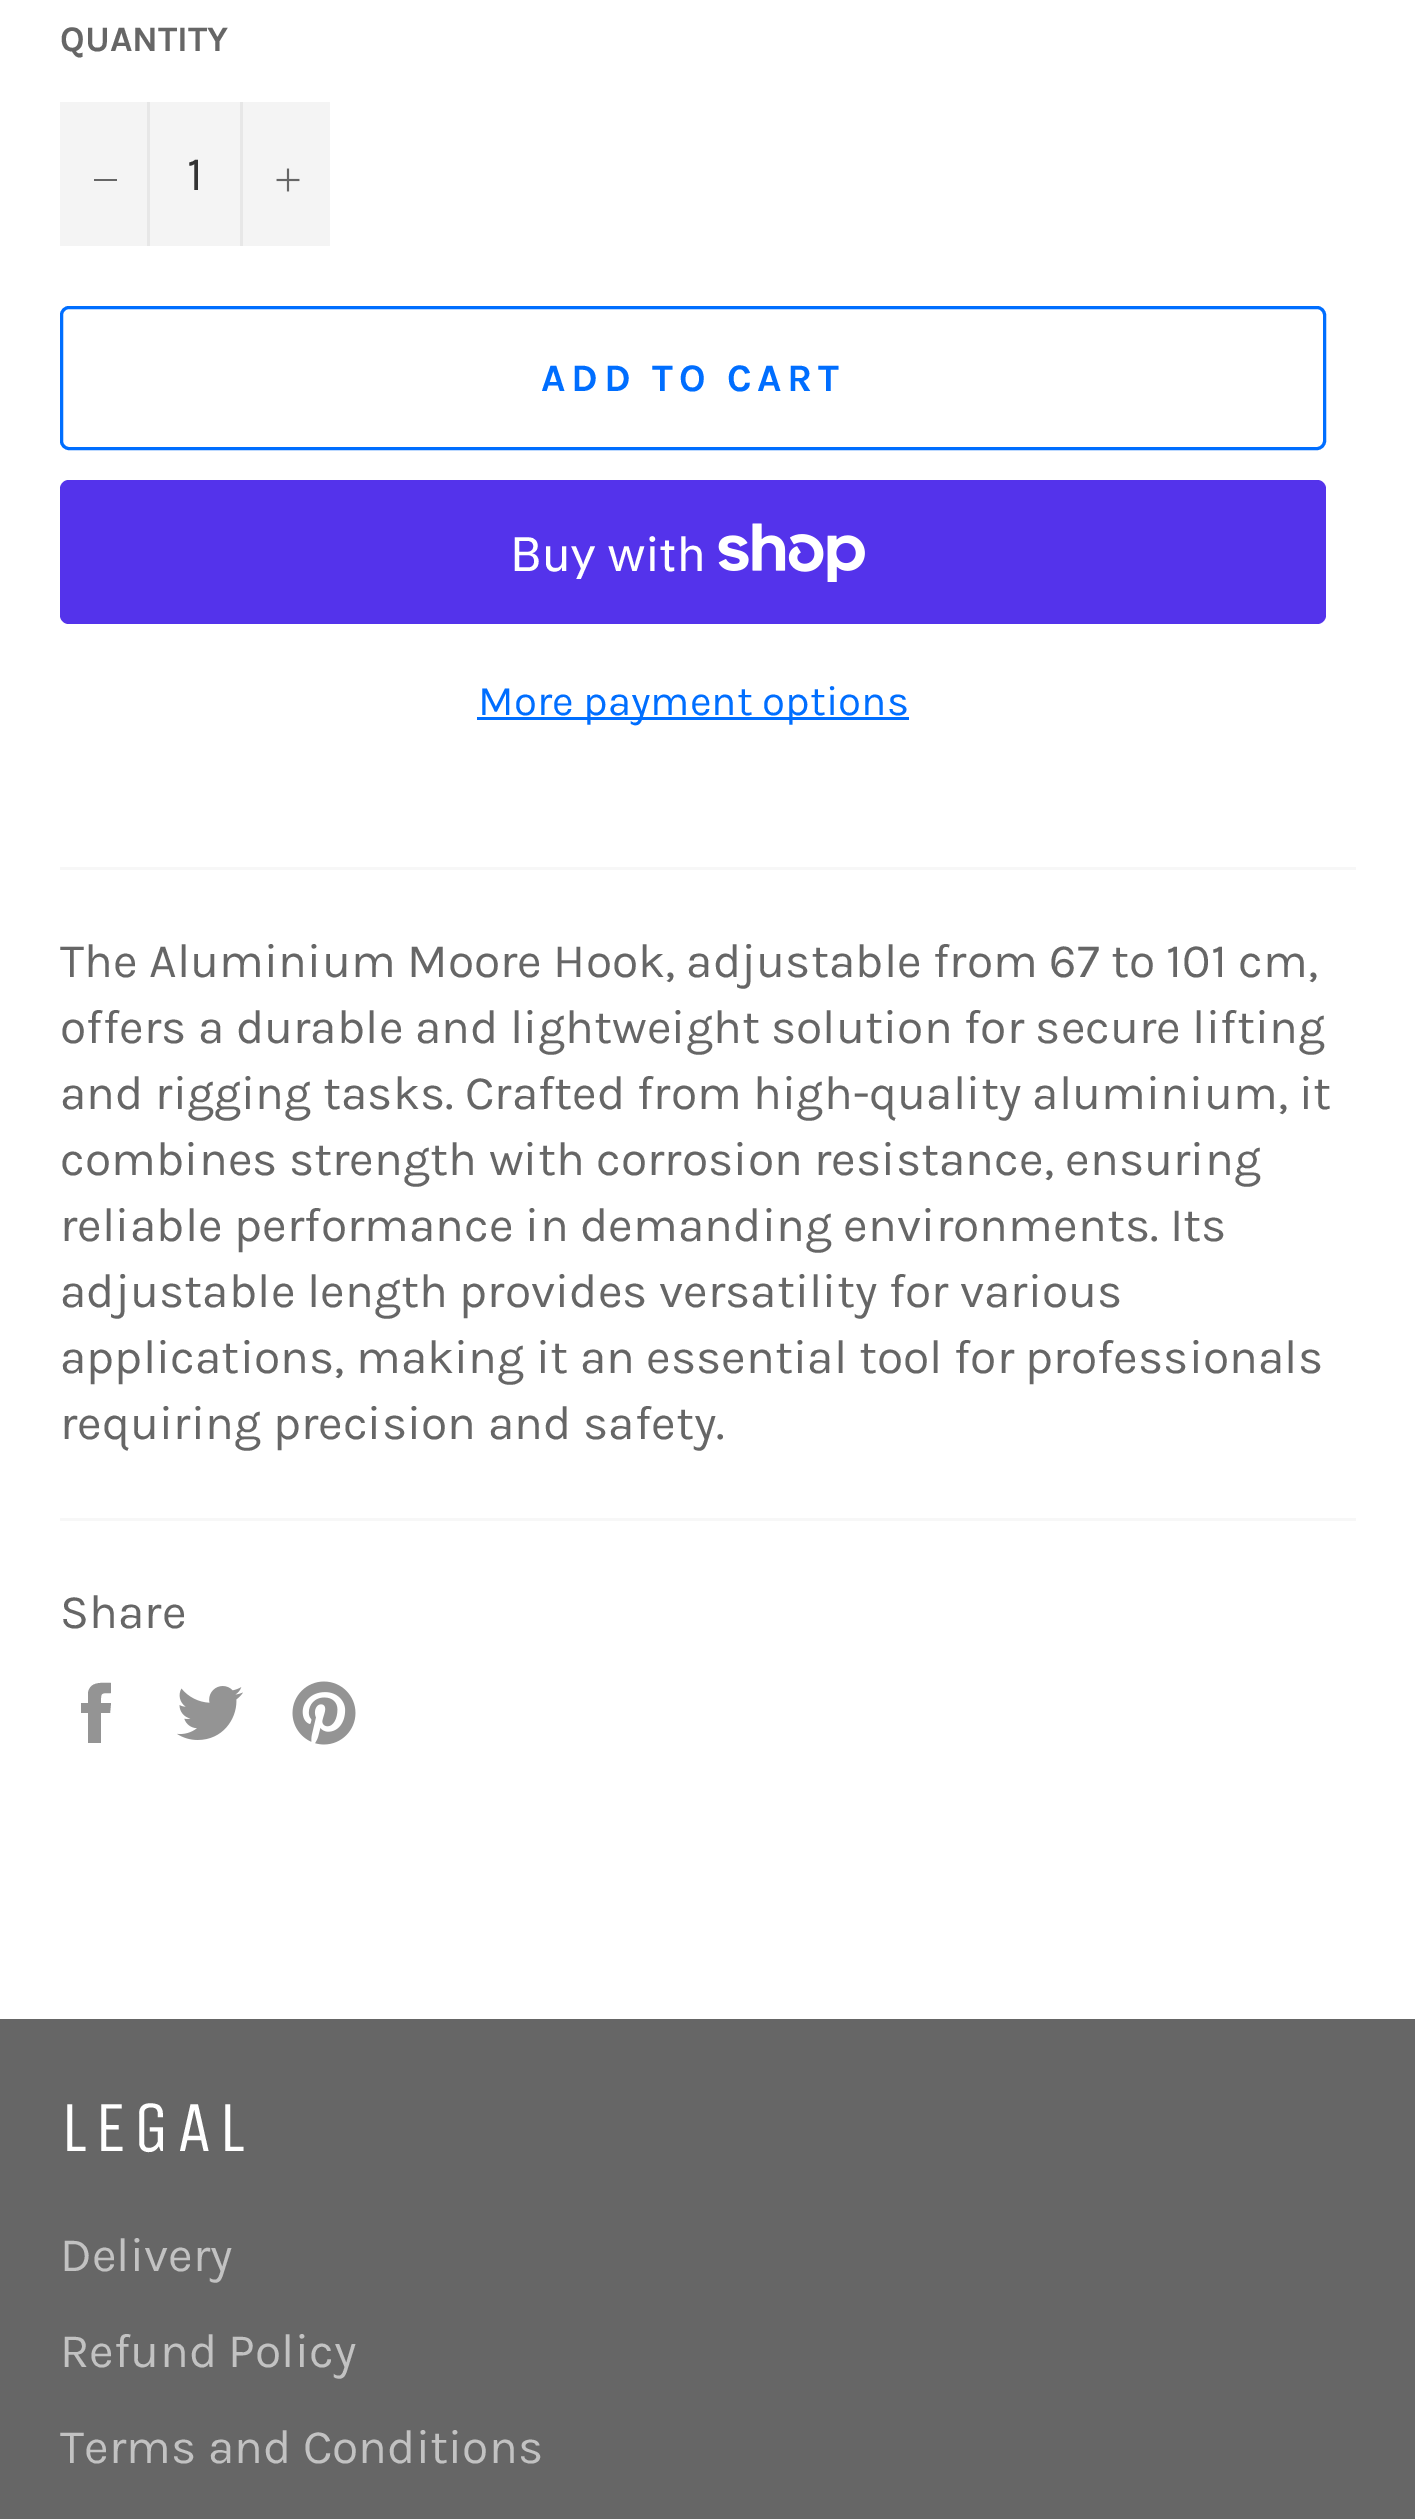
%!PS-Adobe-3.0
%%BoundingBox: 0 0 1415 2519
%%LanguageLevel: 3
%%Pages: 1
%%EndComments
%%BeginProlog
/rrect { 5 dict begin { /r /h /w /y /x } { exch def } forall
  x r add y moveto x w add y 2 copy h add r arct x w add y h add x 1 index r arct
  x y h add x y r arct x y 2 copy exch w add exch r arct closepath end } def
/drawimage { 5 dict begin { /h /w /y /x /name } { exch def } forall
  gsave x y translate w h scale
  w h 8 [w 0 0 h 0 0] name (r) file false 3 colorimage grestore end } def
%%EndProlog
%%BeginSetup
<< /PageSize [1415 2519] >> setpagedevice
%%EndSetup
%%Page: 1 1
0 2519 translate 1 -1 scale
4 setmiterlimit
1 setgray
0 0 1415 2519 rectfill
0.957 setgray
60 102 270 144 rectfill
0.906 setgray
147 102 3 144 rectfill
0.4 setgray
94 179 23 2 rectfill
0.906 setgray
240 102 3 144 rectfill
(images/1.raw) 276 168 24 24 drawimage
0 0.431 1 setrgbcolor
3 setlinewidth
61.5 307.5 1263 141 7.5 rrect stroke
0.329 0.2 0.922 setrgbcolor
60 480 1266 144 9 rrect fill
(images/2.raw) 718 523 147 59 drawimage
0 0.431 1 setrgbcolor
477 717 432 3 rectfill
0.969 setgray
60 867 1296 3 rectfill
60 1518 1296 3 rectfill
0.58 setgray
newpath 101 1703 moveto 101 1693 100 1693 111 1693 curveto 111 1683 lineto 102 1683 90 1681 88 1693 curveto 88 1703 lineto 81 1703 lineto 81 1713 lineto 88 1713 lineto 88 1743 lineto 101 1743 lineto 101 1713 lineto 110 1713 lineto 111 1703 lineto closepath fill
(images/3.raw) 177 1686 66 54 drawimage
(images/4.raw) 292 1681 64 64 drawimage
0.4 setgray
0 2019 1415 500 rectfill
/Karla-Bold [36 0 0 -36 0 0] selectfont
60 51 moveto (QUANTITY) show
/Karla-Regular [48 0 0 -48 0 0] selectfont
0.2 setgray
187 190 moveto (1) show
/Karla-Bold [39 0 0 -39 0 0] selectfont
0 0.431 1 setrgbcolor
541 391 moveto 5.8 0 (ADD TO CART) ashow
/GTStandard-Regular [48 0 0 -48 0 0] selectfont
1 setgray
510 571 moveto (Buy with) show
/Karla-Regular [42 0 0 -42 0 0] selectfont
0 0.431 1 setrgbcolor
478 715 moveto (More payment options) show
/Karla-Regular [48 0 0 -48 0 0] selectfont
0.4 setgray
60 977 moveto (The Aluminium Moore Hook, adjustable from 67 to 101 cm,) show
60 1043 moveto (offers a durable and lightweight solution for secure lifting) show
60 1109 moveto (and rigging tasks. Crafted from high-quality aluminium, it) show
60 1175 moveto (combines strength with corrosion resistance, ensuring) show
60 1241 moveto (reliable performance in demanding environments. Its) show
60 1307 moveto (adjustable length provides versatility for various) show
60 1373 moveto (applications, making it an essential tool for professionals) show
60 1439 moveto (requiring precision and safety.) show
60 1628 moveto (Share) show
/UnicaOne-Regular [72 0 0 -72 0 0] selectfont
1 setgray
60 2151 moveto 7.25 0 (LEGAL) ashow
/Karla-Regular [48 0 0 -48 0 0] selectfont
0.761 setgray
60 2271 moveto (Delivery) show
60 2367 moveto (Refund Policy) show
60 2463 moveto (Terms and Conditions) show
showpage
%%EOF
